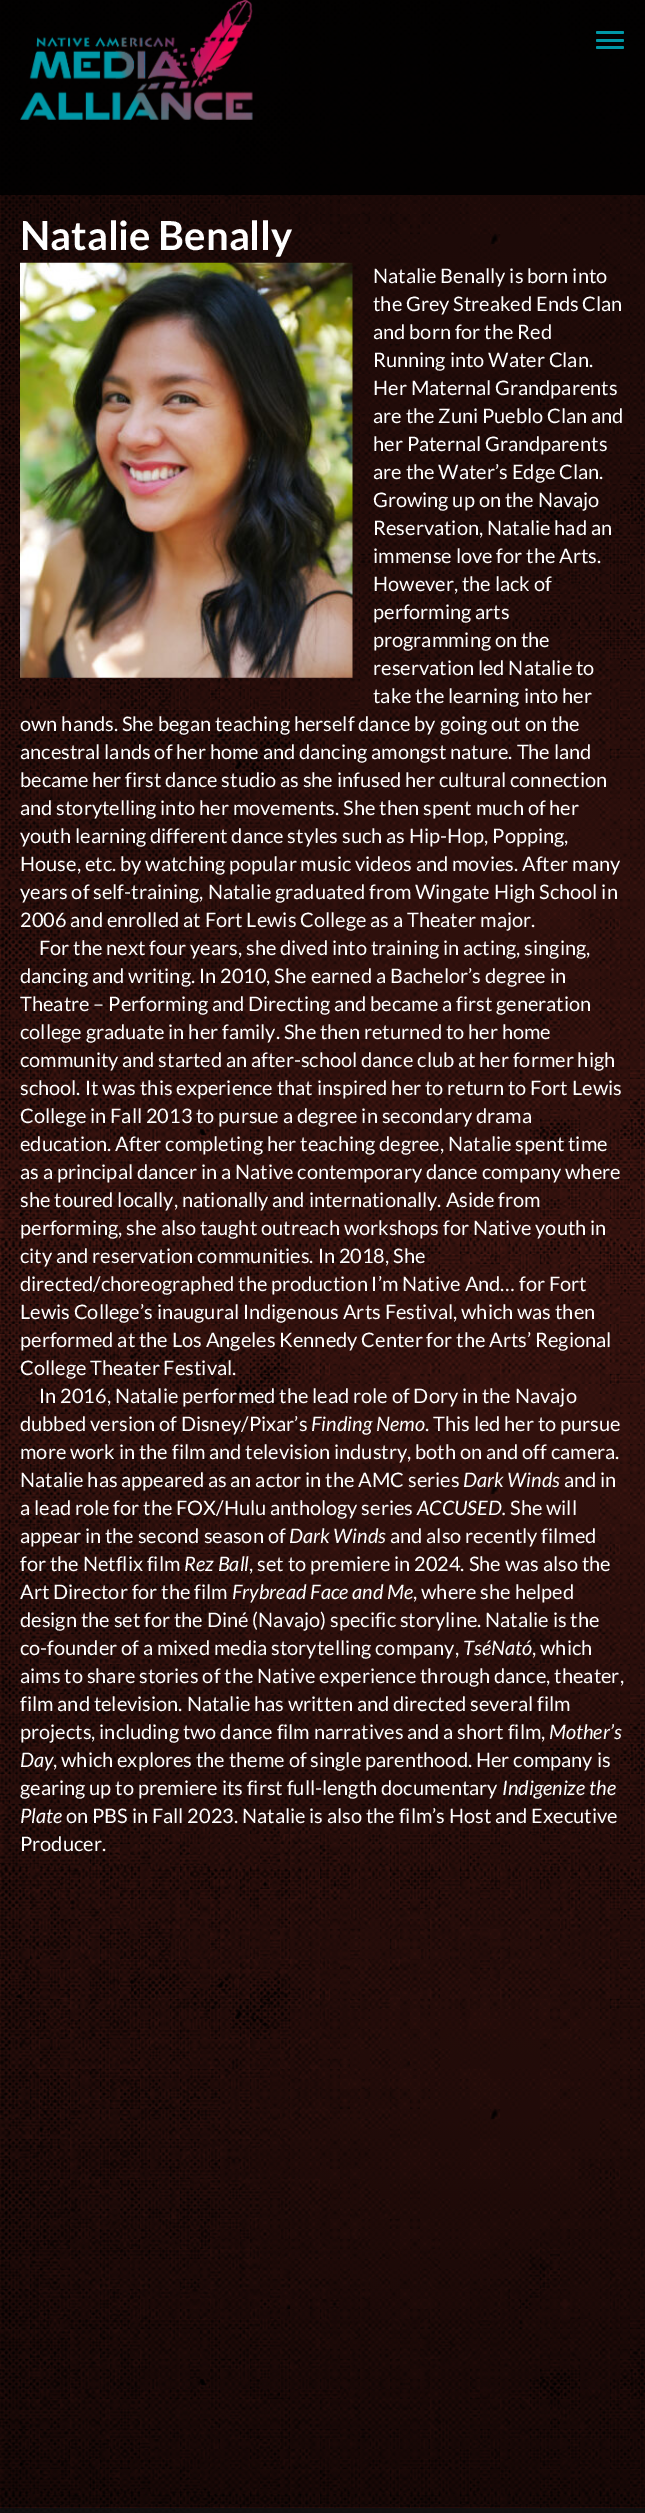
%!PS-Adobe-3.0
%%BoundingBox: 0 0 645 2513
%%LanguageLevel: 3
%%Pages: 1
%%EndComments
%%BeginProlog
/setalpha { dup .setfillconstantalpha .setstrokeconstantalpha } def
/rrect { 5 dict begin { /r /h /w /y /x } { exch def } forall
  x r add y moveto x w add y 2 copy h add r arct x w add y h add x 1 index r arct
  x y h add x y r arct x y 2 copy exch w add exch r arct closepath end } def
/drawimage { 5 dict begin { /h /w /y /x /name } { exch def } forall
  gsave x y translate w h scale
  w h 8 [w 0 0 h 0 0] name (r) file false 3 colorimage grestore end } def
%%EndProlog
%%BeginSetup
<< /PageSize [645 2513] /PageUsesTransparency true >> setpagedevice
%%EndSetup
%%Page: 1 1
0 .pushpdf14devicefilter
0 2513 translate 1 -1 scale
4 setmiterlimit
1 setgray
0 0 645 2513 rectfill
(images/4.raw) 0 2507 645 6 drawimage
(images/2.raw) 0 0 645 2508 drawimage
0.9 setalpha
0 setgray
0 0 645 195 rectfill
1 setalpha
(images/1.raw) 20 0 233 120 drawimage
0 0.596 0.655 setrgbcolor
596 31 28 3 1.5 rrect fill
596 39 28 3 1.5 rrect fill
596 46 28 3 1.5 rrect fill
(images/3.raw) 20 262 333 416 drawimage
/Lato-Bold [40 0 0 -40 0 0] selectfont
1 setgray
20 250 moveto (Natalie Benally) show
/Lato-Regular [20 0 0 -20 0 0] selectfont
373 283 moveto (Natalie Benally is born into) show
373 311 moveto (the Grey Streaked Ends Clan) show
373 339 moveto (and born for the Red) show
373 367 moveto (Running into Water Clan.) show
373 395 moveto (Her Maternal Grandparents) show
373 423 moveto (are the Zuni Pueblo Clan and) show
373 451 moveto (her Paternal Grandparents) show
373 479 moveto (are the Water’s Edge Clan.) show
373 507 moveto (Growing up on the Navajo) show
373 535 moveto (Reservation, Natalie had an) show
373 563 moveto (immense love for the Arts.) show
373 591 moveto (However, the lack of) show
373 619 moveto (performing arts) show
373 647 moveto (programming on the) show
373 675 moveto (reservation led Natalie to) show
373 703 moveto (take the learning into her) show
20 731 moveto (own hands. She began teaching herself dance by going out on the) show
20 759 moveto (ancestral lands of her home and dancing amongst nature. The land) show
20 787 moveto (became her first dance studio as she infused her cultural connection) show
20 815 moveto (and storytelling into her movements. She then spent much of her) show
20 843 moveto (youth learning different dance styles such as Hip-Hop, Popping,) show
20 871 moveto (House, etc. by watching popular music videos and movies. After many) show
20 899 moveto (years of self-training, Natalie graduated from Wingate High School in) show
20 927 moveto (2006 and enrolled at Fort Lewis College as a Theater major.) show
39 955 moveto (For the next four years, she dived into training in acting, singing,) show
20 983 moveto (dancing and writing. In 2010, She earned a Bachelor’s degree in) show
20 1011 moveto (Theatre – Performing and Directing and became a first generation) show
20 1039 moveto (college graduate in her family. She then returned to her home) show
20 1067 moveto (community and started an after-school dance club at her former high) show
20 1095 moveto (school. It was this experience that inspired her to return to Fort Lewis) show
20 1123 moveto (College in Fall 2013 to pursue a degree in secondary drama) show
20 1151 moveto (education. After completing her teaching degree, Natalie spent time) show
20 1179 moveto (as a principal dancer in a Native contemporary dance company where) show
20 1207 moveto (she toured locally, nationally and internationally. Aside from) show
20 1235 moveto (performing, she also taught outreach workshops for Native youth in) show
20 1263 moveto (city and reservation communities. In 2018, She) show
20 1291 moveto (directed/choreographed the production I’m Native And… for Fort) show
20 1319 moveto (Lewis College’s inaugural Indigenous Arts Festival, which was then) show
20 1347 moveto (performed at the Los Angeles Kennedy Center for the Arts’ Regional) show
20 1375 moveto (College Theater Festival.) show
39 1403 moveto (In 2016, Natalie performed the lead role of Dory in the Navajo) show
20 1431 moveto (dubbed version of Disney/Pixar’s) show
/Lato-Italic [20 0 0 -20 0 0] selectfont
311 1431 moveto (Finding Nemo) show
/Lato-Regular [20 0 0 -20 0 0] selectfont
425 1431 moveto (. This led her to pursue) show
20 1459 moveto (more work in the film and television industry, both on and off camera.) show
20 1487 moveto (Natalie has appeared as an actor in the AMC series) show
/Lato-Italic [20 0 0 -20 0 0] selectfont
463 1487 moveto (Dark Winds) show
/Lato-Regular [20 0 0 -20 0 0] selectfont
564 1487 moveto (and in) show
20 1515 moveto (a lead role for the FOX/Hulu anthology series) show
/Lato-Italic [20 0 0 -20 0 0] selectfont
417 1515 moveto (ACCUSED.) show
/Lato-Regular [20 0 0 -20 0 0] selectfont
510 1515 moveto (She will) show
20 1543 moveto (appear in the second season of) show
/Lato-Italic [20 0 0 -20 0 0] selectfont
289 1543 moveto (Dark Winds) show
/Lato-Regular [20 0 0 -20 0 0] selectfont
390 1543 moveto (and also recently filmed) show
20 1571 moveto (for the Netflix film) show
/Lato-Italic [20 0 0 -20 0 0] selectfont
184 1571 moveto (Rez Ball) show
/Lato-Regular [20 0 0 -20 0 0] selectfont
249 1571 moveto (, set to premiere in 2024. She was also the) show
20 1599 moveto (Art Director for the film) show
/Lato-Italic [20 0 0 -20 0 0] selectfont
232 1599 moveto (Frybread Face and Me) show
/Lato-Regular [20 0 0 -20 0 0] selectfont
413 1599 moveto (, where she helped) show
20 1627 moveto (design the set for the Diné \(Navajo\) specific storyline. Natalie is the) show
20 1655 moveto (co-founder of a mixed media storytelling company,) show
/Lato-Italic [20 0 0 -20 0 0] selectfont
463 1655 moveto (TséNató) show
/Lato-Regular [20 0 0 -20 0 0] selectfont
532 1655 moveto (, which) show
20 1683 moveto (aims to share stories of the Native experience through dance, theater,) show
20 1711 moveto (film and television. Natalie has written and directed several film) show
20 1739 moveto (projects, including two dance film narratives and a short film,) show
/Lato-Italic [20 0 0 -20 0 0] selectfont
549 1739 moveto (Mother’s) show
20 1767 moveto (Day) show
/Lato-Regular [20 0 0 -20 0 0] selectfont
53 1767 moveto (, which explores the theme of single parenthood. Her company is) show
20 1795 moveto (gearing up to premiere its first full-length documentary) show
/Lato-Italic [20 0 0 -20 0 0] selectfont
502 1795 moveto (Indigenize the) show
20 1823 moveto (Plate) show
/Lato-Regular [20 0 0 -20 0 0] selectfont
66 1823 moveto (on PBS in Fall 2023. Natalie is also the film’s Host and Executive) show
20 1851 moveto (Producer.) show
.poppdf14devicefilter showpage
%%EOF
